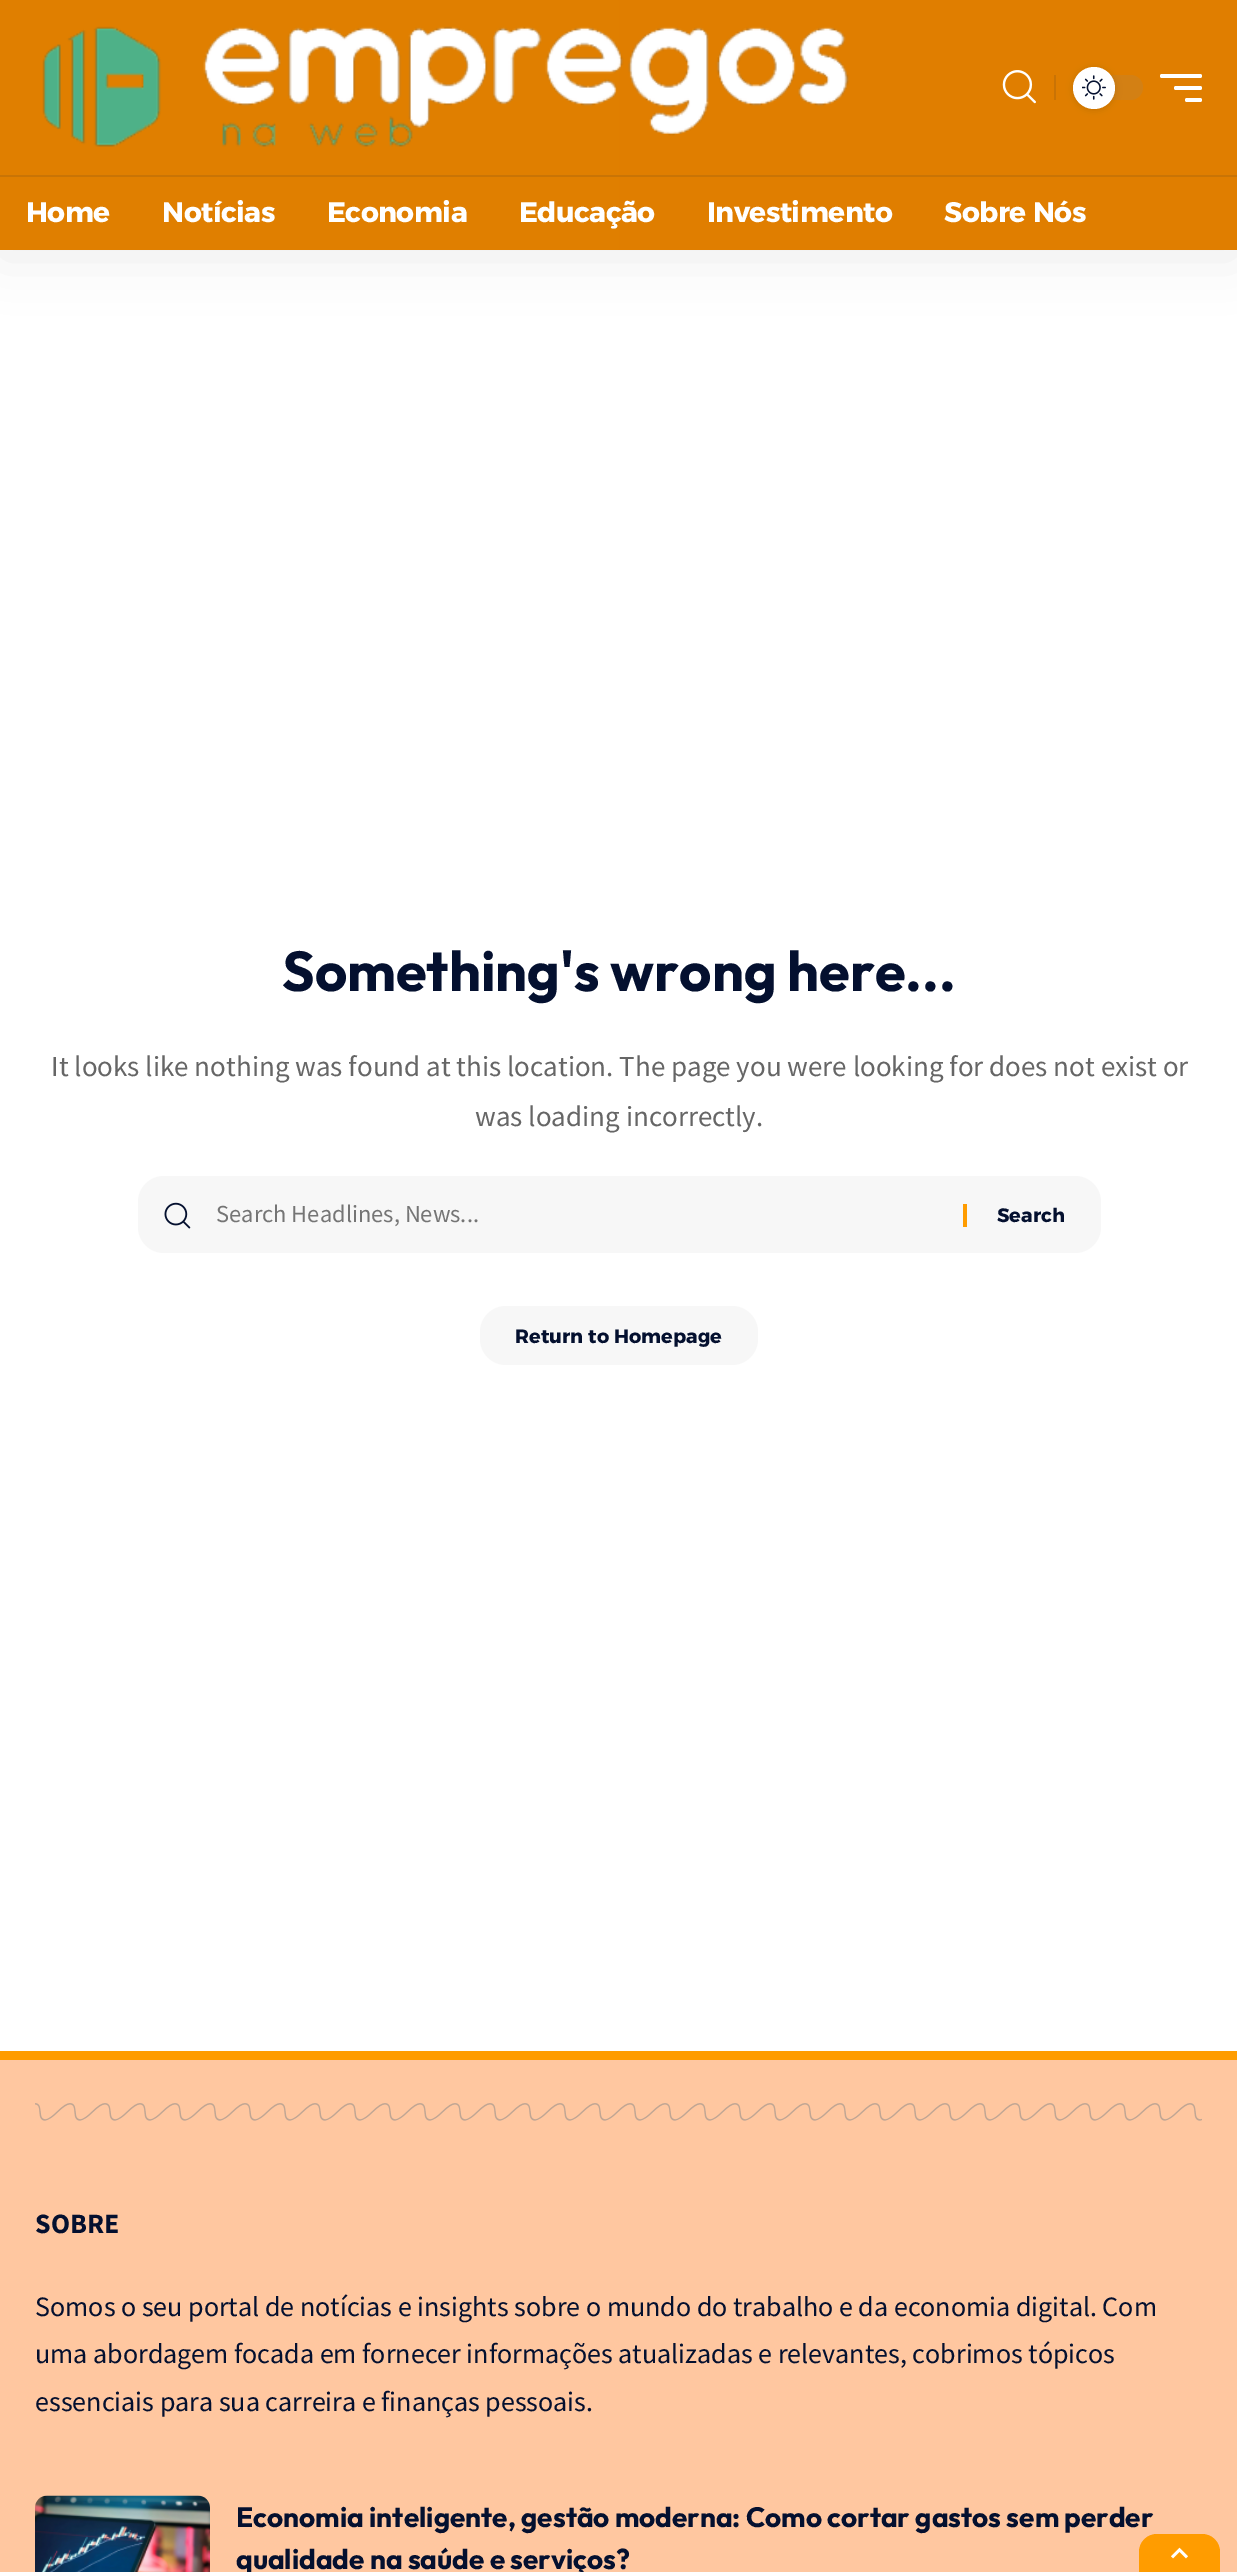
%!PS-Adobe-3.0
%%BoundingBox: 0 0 1237 2572
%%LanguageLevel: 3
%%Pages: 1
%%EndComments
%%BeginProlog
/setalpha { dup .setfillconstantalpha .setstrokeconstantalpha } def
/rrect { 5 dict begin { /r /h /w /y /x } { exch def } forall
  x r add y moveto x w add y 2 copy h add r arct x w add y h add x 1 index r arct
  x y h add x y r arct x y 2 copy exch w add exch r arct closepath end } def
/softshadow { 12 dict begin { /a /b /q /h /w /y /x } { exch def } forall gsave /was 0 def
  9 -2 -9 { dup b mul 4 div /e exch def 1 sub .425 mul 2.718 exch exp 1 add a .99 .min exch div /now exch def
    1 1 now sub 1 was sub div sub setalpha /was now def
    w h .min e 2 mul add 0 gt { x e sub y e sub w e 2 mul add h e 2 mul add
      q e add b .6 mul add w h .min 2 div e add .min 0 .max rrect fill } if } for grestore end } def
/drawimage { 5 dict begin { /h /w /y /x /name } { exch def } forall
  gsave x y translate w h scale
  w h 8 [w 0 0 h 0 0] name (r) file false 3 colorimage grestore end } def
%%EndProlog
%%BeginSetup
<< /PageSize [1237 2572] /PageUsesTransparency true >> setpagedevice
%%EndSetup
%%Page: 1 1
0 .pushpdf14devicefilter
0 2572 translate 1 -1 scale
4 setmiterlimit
1 setgray
0 0 1237 2572 rectfill
0 setgray
0 7 1237 250 0 26 0.07 softshadow
gsave newpath 0 0 moveto 1237 0 lineto 1237 250 lineto 0 250 lineto closepath clip newpath
<< /ShadingType 2 /ColorSpace /DeviceRGB /Coords [0 125 1237 125] /Extend [true true] /Function << /FunctionType 2 /Domain [0 1] /C0 [0.878 0.498 0] /C1 [0.878 0.494 0] /N 1 >> >> shfill grestore
(images/1.raw) 42 26 807 121 drawimage
(images/2.raw) 1002 70 34 34 drawimage
0.788 0.451 0.02 setrgbcolor
1054 75 2 25 rectfill
0.827 0.502 0.078 setrgbcolor
1073 75 70 25 12.5 rrect fill
0 setgray
1073 68 42 42 21 3.5 0.12 softshadow
1 setgray
newpath 1094 88 21 0 360 arc closepath fill
(images/3.raw) 1082 75 24 25 drawimage
1160 74 42 4 2 rrect fill
1174 86 28 4 2 rrect fill
1185 98 17 4 2 rrect fill
0.788 0.455 0.02 setrgbcolor
0 175 1237 2 rectfill
0.969 setgray
138 1176 963 77 26 rrect fill
(images/4.raw) 164 1202 27 27 drawimage
1 0.612 0 setrgbcolor
963 1204 4 23 rectfill
0.969 setgray
480 1306 278 59 26 rrect fill
1 0.78 0.627 setrgbcolor
0 2060 1237 512 rectfill
1 0.612 0 setrgbcolor
0 2051 1237 9 rectfill
(images/5.raw) 35 2103 1167 18 drawimage
(images/6.raw) 35 2495 175 77 drawimage
newpath 1157 2534 moveto 1202 2534 lineto 1212 2534 1220 2542 1220 2552 curveto 1220 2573 lineto 1139 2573 lineto 1139 2552 lineto 1139 2542 1147 2534 1157 2534 curveto closepath fill
(images/7.raw) 1171 2547 17 12 drawimage
/Alexandria-Bold [28 0 0 -28 0 0] selectfont
1 setgray
26 222 moveto -0.5 0 (Home) ashow
162 222 moveto -0.5 0 (Notícias) ashow
327 222 moveto -0.5 0 (Economia) ashow
519 222 moveto -0.5 0 (Educação) ashow
707 222 moveto -0.5 0 (Investimento) ashow
944 222 moveto -0.5 0 (Sobre Nós) ashow
/Outfit-Bold [56 0 0 -56 0 0] selectfont
0.016 0.063 0.184 setrgbcolor
282 991 moveto (Something's wrong here...) show
/SourceSansPro-Regular [29 0 0 -29 0 0] selectfont
0.4 setgray
51 1076 moveto (It looks like nothing was found at this location. The page you were looking for does not exist or) show
475 1126 moveto (was loading incorrectly.) show
/SourceSansPro-Regular [24.5 0 0 -24.5 0 0] selectfont
0.459 setgray
216 1222 moveto (Search Headlines, News...) show
/Alexandria-Bold [19.25 0 0 -19.25 0 0] selectfont
0.016 0.063 0.184 setrgbcolor
997 1222 moveto (Search) show
515 1343 moveto (Return to Homepage) show
/SourceSansPro-Bold [28 0 0 -28 0 0] selectfont
35 2233 moveto (SOBRE) show
/SourceSansPro-Regular [28 0 0 -28 0 0] selectfont
35 2316 moveto (Somos o seu portal de notícias e insights sobre o mundo do trabalho e da economia digital. Com) show
35 2363 moveto (uma abordagem focada em fornecer informações atualizadas e relevantes, cobrimos tópicos) show
35 2411 moveto (essenciais para sua carreira e finanças pessoais.) show
/Outfit-Bold [28 0 0 -28 0 0] selectfont
236 2527 moveto (Economia inteligente, gestão moderna: Como cortar gastos sem perder) show
236 2569 moveto (qualidade na saúde e serviços?) show
.poppdf14devicefilter showpage
%%EOF
